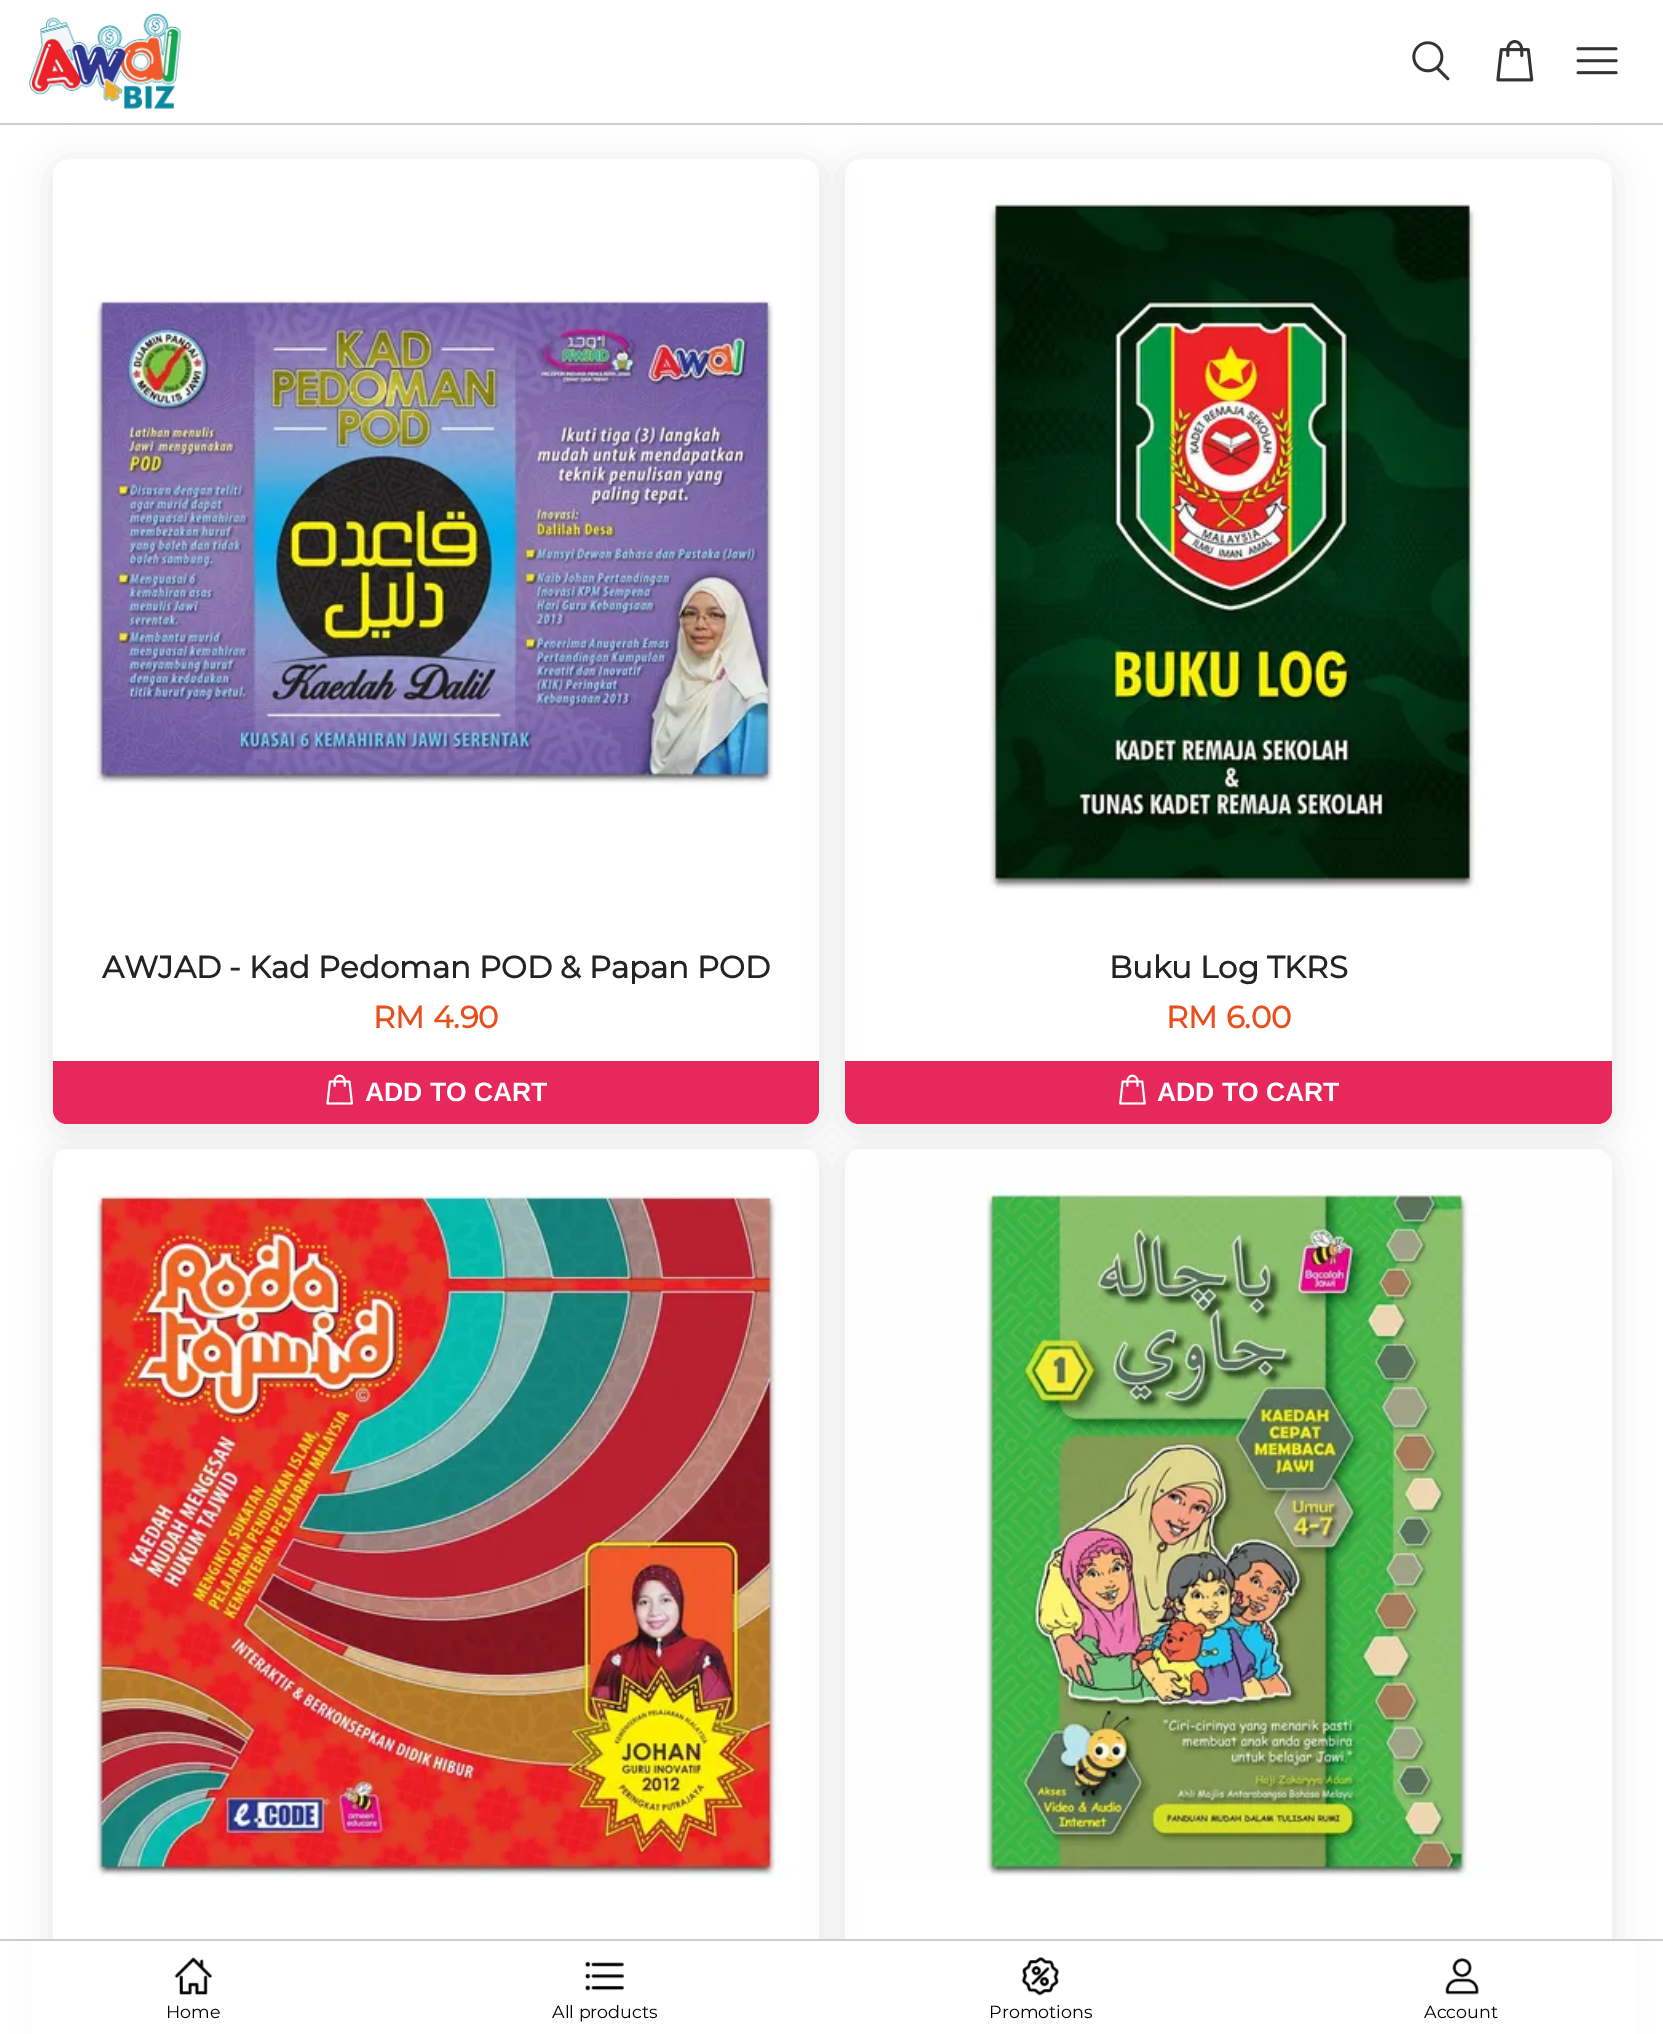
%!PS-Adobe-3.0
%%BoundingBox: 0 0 1663 2034
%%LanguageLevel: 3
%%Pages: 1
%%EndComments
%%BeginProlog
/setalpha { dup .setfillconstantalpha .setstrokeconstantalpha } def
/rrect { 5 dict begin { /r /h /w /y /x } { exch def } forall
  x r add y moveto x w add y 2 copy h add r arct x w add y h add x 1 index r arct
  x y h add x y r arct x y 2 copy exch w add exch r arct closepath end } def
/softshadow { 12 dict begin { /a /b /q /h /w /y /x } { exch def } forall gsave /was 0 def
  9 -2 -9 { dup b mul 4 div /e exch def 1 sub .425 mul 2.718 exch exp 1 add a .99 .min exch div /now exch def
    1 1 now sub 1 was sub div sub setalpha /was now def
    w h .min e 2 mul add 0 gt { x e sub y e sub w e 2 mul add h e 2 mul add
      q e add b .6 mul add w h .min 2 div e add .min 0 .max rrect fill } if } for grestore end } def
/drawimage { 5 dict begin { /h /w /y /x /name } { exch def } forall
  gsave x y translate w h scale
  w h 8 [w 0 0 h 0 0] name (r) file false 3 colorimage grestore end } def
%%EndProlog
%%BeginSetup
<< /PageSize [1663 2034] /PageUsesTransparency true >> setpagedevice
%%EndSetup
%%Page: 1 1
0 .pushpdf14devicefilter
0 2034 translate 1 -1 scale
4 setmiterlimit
1 setgray
0 0 1663 2034 rectfill
gsave
newpath 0 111 moveto 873 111 lineto 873 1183 lineto 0 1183 lineto closepath 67 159 moveto 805 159 lineto 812.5 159 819 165.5 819 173 curveto 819 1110 lineto 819 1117.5 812.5 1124 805 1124 curveto 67 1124 lineto 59.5 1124 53 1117.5 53 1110 curveto 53 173 lineto 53 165.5 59.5 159 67 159 curveto closepath eoclip newpath
0 setgray
53 165 766 964 14 17.5 0.1 softshadow
grestore
0.906 0.157 0.361 setrgbcolor
newpath 53 1061 moveto 819 1061 lineto 819 1110 lineto 819 1117.5 812.5 1124 805 1124 curveto 67 1124 lineto 59.5 1124 53 1117.5 53 1110 curveto closepath fill
gsave
newpath 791 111 moveto 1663 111 lineto 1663 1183 lineto 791 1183 lineto closepath 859 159 moveto 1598 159 lineto 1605.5 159 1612 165.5 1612 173 curveto 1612 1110 lineto 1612 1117.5 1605.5 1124 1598 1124 curveto 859 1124 lineto 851.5 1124 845 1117.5 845 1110 curveto 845 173 lineto 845 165.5 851.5 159 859 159 curveto closepath eoclip newpath
0 setgray
845 165 767 964 14 17.5 0.1 softshadow
grestore
0.8 setgray
0 123 1663 2 rectfill
(images/1.raw) 29 13 153 96 drawimage
(images/2.raw) 1412 41 38 40 drawimage
(images/3.raw) 1496 40 38 42 drawimage
(images/4.raw) 1576 47 42 28 drawimage
(images/5.raw) 90 299 684 487 drawimage
(images/6.raw) 326 1074 27 31 drawimage
(images/7.raw) 988 199 490 691 drawimage
0.906 0.157 0.361 setrgbcolor
newpath 845 1061 moveto 1612 1061 lineto 1612 1110 lineto 1612 1117.5 1605.5 1124 1598 1124 curveto 859 1124 lineto 851.5 1124 845 1117.5 845 1110 curveto closepath fill
(images/8.raw) 1119 1074 27 31 drawimage
gsave
newpath 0 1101 moveto 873 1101 lineto 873 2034 lineto 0 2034 lineto closepath 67 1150 moveto 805 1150 lineto 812.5 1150 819 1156.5 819 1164 curveto 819 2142 lineto 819 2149.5 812.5 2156 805 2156 curveto 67 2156 lineto 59.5 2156 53 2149.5 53 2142 curveto 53 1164 lineto 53 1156.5 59.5 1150 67 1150 curveto closepath eoclip newpath
0 setgray
53 1155 766 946 14 17.5 0.1 softshadow
grestore
(images/9.raw) 56 1149 760 730 drawimage
gsave
newpath 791 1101 moveto 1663 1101 lineto 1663 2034 lineto 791 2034 lineto closepath 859 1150 moveto 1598 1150 lineto 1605.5 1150 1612 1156.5 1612 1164 curveto 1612 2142 lineto 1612 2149.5 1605.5 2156 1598 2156 curveto 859 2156 lineto 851.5 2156 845 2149.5 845 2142 curveto 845 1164 lineto 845 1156.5 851.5 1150 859 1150 curveto closepath eoclip newpath
0 setgray
845 1155 767 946 14 17.5 0.1 softshadow
grestore
(images/10.raw) 849 1149 754 729 drawimage
1 setgray
31 1941 1603 93 rectfill
0.8 setgray
0 1939 1663 2 rectfill
(images/11.raw) 174 1957 38 38 drawimage
(images/12.raw) 585 1961 40 30 drawimage
(images/13.raw) 1021 1957 38 39 drawimage
(images/14.raw) 1445 1958 34 37 drawimage
/Montserrat-Bold [30.8 0 0 -30.8 0 0] selectfont
0.137 setgray
102 978 moveto (AWJAD - Kad Pedoman POD & Papan POD) show
0.914 0.31 0.11 setrgbcolor
373 1028 moveto (RM 4.90) show
/LiberationSans-Bold [26.5 0 0 -26.5 0 0] selectfont
1 setgray
365 1101 moveto (ADD TO CART) show
/Montserrat-Bold [30.8 0 0 -30.8 0 0] selectfont
0.137 setgray
1109 978 moveto (Buku Log TKRS) show
0.914 0.31 0.11 setrgbcolor
1166 1028 moveto (RM 6.00) show
/LiberationSans-Bold [26.5 0 0 -26.5 0 0] selectfont
1 setgray
1157 1101 moveto (ADD TO CART) show
/Montserrat-Thin [17.5 0 0 -17.5 0 0] selectfont
0 setgray
166 2018 moveto (Home) show
552 2018 moveto (All products) show
989 2018 moveto (Promotions) show
1424 2018 moveto (Account) show
.poppdf14devicefilter showpage
%%EOF
